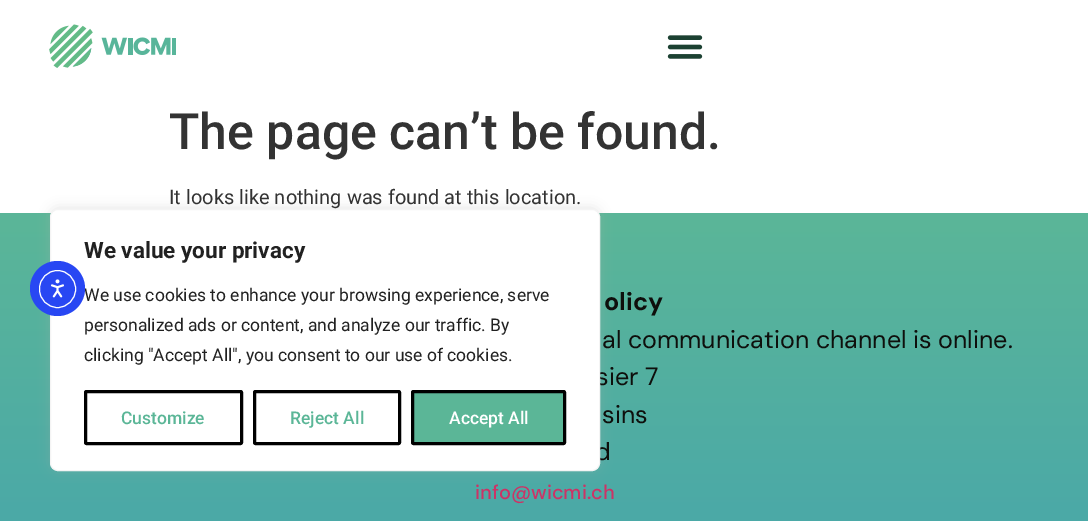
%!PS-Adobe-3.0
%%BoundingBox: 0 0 1088 521
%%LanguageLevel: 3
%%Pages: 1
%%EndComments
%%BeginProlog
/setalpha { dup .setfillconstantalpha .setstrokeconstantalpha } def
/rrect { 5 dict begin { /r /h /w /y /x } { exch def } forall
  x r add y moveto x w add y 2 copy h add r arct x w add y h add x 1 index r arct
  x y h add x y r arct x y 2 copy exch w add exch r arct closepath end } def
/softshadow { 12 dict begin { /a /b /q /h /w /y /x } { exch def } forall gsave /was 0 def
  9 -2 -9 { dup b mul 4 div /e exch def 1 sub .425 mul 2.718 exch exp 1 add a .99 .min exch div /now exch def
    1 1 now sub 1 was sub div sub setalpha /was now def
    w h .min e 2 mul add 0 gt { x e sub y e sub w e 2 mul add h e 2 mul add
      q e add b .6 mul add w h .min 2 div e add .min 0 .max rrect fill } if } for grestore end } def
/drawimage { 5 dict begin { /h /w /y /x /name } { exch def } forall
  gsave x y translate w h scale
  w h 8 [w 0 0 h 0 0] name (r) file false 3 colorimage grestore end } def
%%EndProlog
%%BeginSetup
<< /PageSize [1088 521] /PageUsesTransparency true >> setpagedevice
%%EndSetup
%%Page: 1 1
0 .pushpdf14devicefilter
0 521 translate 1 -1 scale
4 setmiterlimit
1 setgray
0 0 1088 521 rectfill
(images/1.raw) 49 24 127 44 drawimage
(images/2.raw) 667 35 36 24 drawimage
gsave newpath 0 213 moveto 1088 213 lineto 1088 521 lineto 0 521 lineto closepath clip newpath
<< /ShadingType 2 /ColorSpace /DeviceRGB /Coords [544 212 544 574] /Extend [true true] /Function << /FunctionType 2 /Domain [0 1] /C0 [0.357 0.714 0.596] /C1 [0.282 0.655 0.667] /N 1 >> >> shfill grestore
0.675 0.671 0.671 setrgbcolor
50 208 550 262 8 6 0.3 softshadow
/Roboto-Medium [50 0 0 -50 0 0] selectfont
0.2 setgray
169 149 moveto (The page can’t be found.) show
/Roboto-Regular [20 0 0 -20 0 0] selectfont
169 204 moveto (It looks like nothing was found at this location.) show
/DMSans-Bold [25 0 0 -25 0 0] selectfont
0.055 0.059 0.047 setrgbcolor
604 310 moveto (olicy) show
/DMSans-Regular [25 0 0 -25 0 0] selectfont
602 348 moveto (al communication channel is online.) show
596 385 moveto (sier 7) show
602 423 moveto (sins) show
595 460 moveto (d) show
1 setgray
50.5 209.5 549 261 7.5 rrect gsave fill grestore
0.957 setgray
stroke
/Roboto-Regular [17.5 0 0 -17.5 0 0] selectfont
0.129 setgray
84 301 moveto (We use cookies to enhance your browsing experience, serve) show
/Roboto-Bold [22.5 0 0 -22.5 0 0] selectfont
84 258 moveto (We value your privacy) show
0.157 0.278 0.953 setrgbcolor
newpath 57.5 288.5 27.5 0 360 arc closepath fill
1 setgray
39.5 270.5 36 37 18 rrect stroke
(images/3.raw) 50 279 14 19 drawimage
0.357 0.714 0.592 setrgbcolor
412.5 391.5 152 52 1 rrect gsave fill grestore
0 setgray
3 setlinewidth
stroke
/Roboto-Medium [17.5 0 0 -17.5 0 0] selectfont
1 setgray
449 424 moveto (Accept All) show
0 setgray
254.5 391.5 145 52 1 rrect stroke
0.357 0.714 0.592 setrgbcolor
290 424 moveto (Reject All) show
0 setgray
85.5 391.5 156 52 1 rrect stroke
0.357 0.714 0.592 setrgbcolor
121 424 moveto (Customize) show
/Roboto-Regular [17.5 0 0 -17.5 0 0] selectfont
0.129 setgray
84 361 moveto (clicking "Accept All", you consent to our use of cookies.) show
84 331 moveto (personalized ads or content, and analyze our traffic. By) show
/DMSans-Medium [20 0 0 -20 0 0] selectfont
0.8 0.2 0.4 setrgbcolor
475 499 moveto (info@wicmi.ch) show
.poppdf14devicefilter showpage
%%EOF
